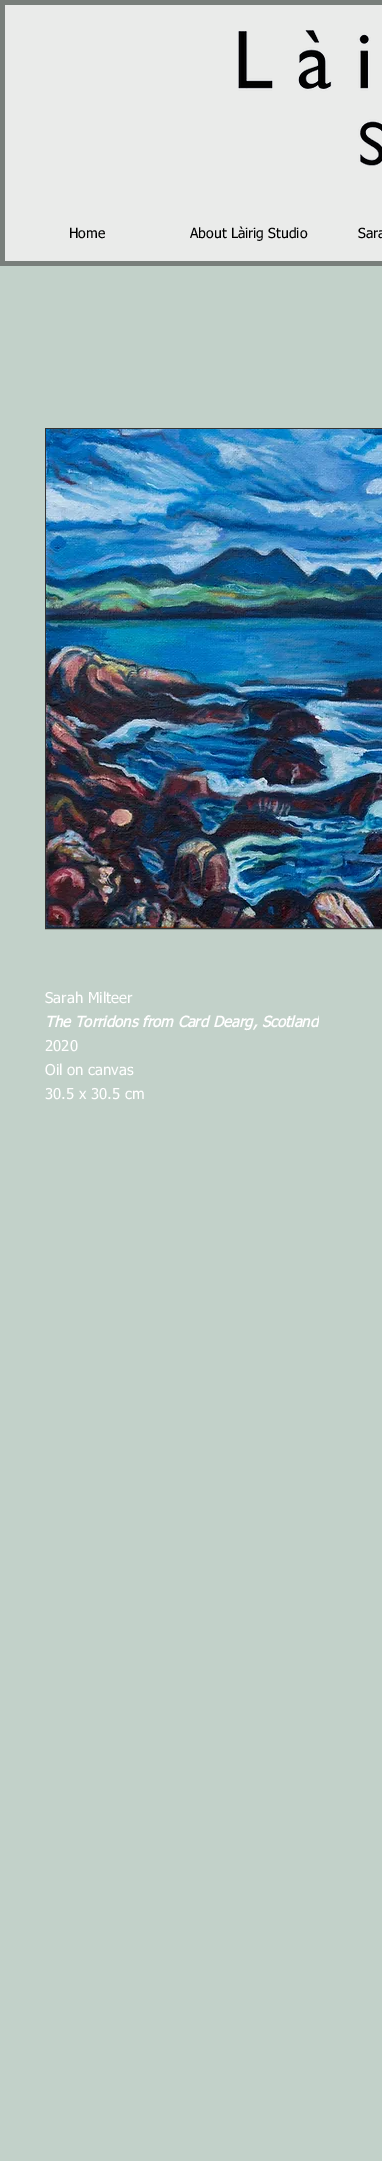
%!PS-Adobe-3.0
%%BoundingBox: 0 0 382 2161
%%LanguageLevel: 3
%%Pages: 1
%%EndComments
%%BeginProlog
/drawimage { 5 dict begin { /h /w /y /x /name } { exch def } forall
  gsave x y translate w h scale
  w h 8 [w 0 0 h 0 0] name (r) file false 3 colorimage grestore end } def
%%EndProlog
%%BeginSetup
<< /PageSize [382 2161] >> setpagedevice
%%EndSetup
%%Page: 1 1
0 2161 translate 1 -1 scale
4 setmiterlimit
0.761 0.82 0.788 setrgbcolor
0 0 382 2161 rectfill
0.475 0.498 0.482 setrgbcolor
0 0 382 266 rectfill
0.918 0.922 0.918 setrgbcolor
5 5 377 256 rectfill
(images/1.raw) 238 30 144 136 drawimage
0.2 setgray
45.5 428.5 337 500 rectstroke
(images/2.raw) 46 429 336 499 drawimage
/tahoma-Regular [14 0 0 -14 0 0] selectfont
0 setgray
69 238 moveto (Home) show
190 238 moveto (About Làirig Studio) show
358 238 moveto (Sara) show
/tahoma-Regular [15 0 0 -15 0 0] selectfont
1 setgray
45 1003 moveto (Sarah Milteer) show
gsave
45 987 274 120 rectclip
/tahoma-BoldItalic [15 0 0 -15 0 0] selectfont
45 1027 moveto (The Torridons from Card Dearg, Scotland) show
grestore
45 1051 moveto (2020) show
45 1075 moveto (Oil on canvas) show
45 1099 moveto (30.5 x 30.5 cm) show
showpage
%%EOF
